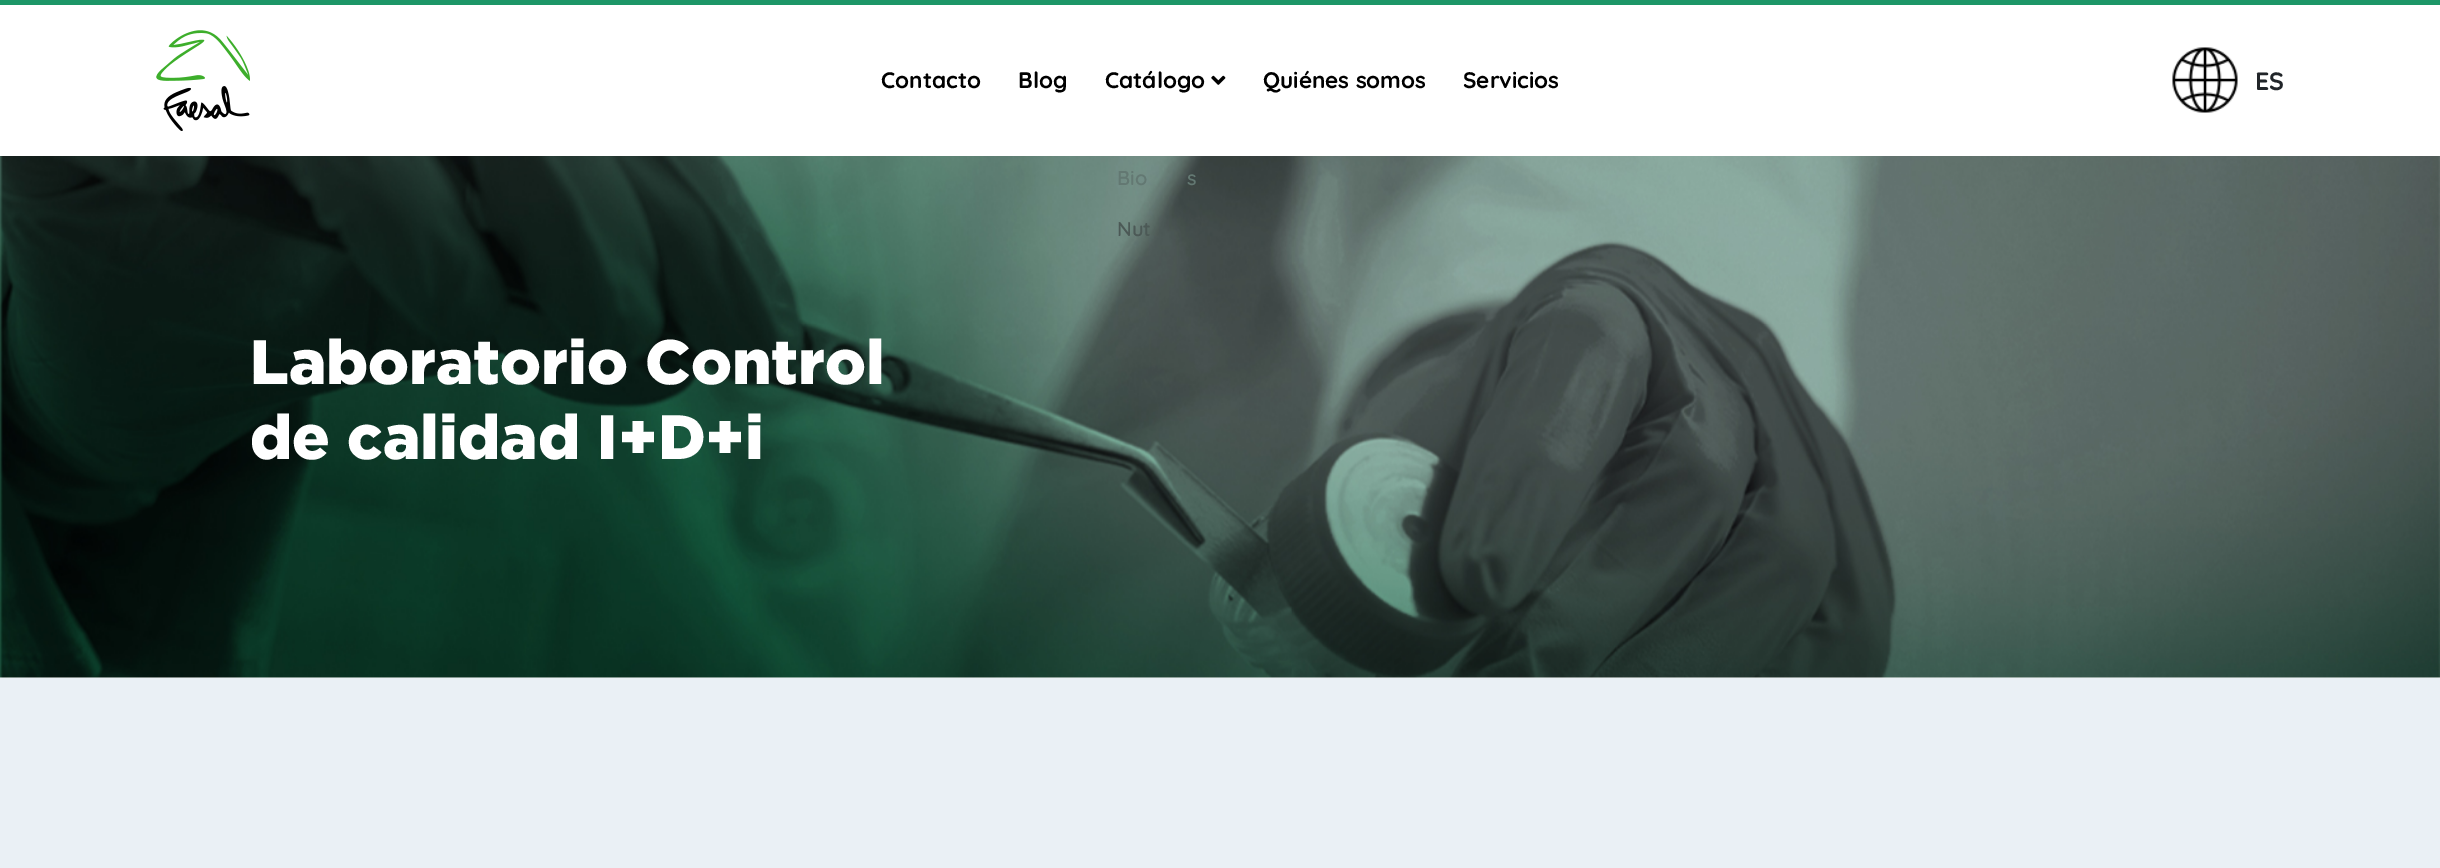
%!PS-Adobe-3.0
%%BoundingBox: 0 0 2440 868
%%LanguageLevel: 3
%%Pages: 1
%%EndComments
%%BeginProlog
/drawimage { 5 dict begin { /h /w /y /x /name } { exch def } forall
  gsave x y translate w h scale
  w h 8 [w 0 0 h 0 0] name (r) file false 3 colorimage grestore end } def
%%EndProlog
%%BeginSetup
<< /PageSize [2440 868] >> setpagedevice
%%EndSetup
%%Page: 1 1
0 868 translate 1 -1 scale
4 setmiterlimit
1 setgray
0 0 2440 868 rectfill
0.114 0.588 0.404 setrgbcolor
0 0 2440 5 rectfill
(images/1.raw) 156 30 94 101 drawimage
(images/2.raw) 1211 75 15 10 drawimage
(images/3.raw) 2172 47 66 66 drawimage
(images/4.raw) 0 156 2440 522 drawimage
0.918 0.941 0.961 setrgbcolor
0 678 2440 190 rectfill
/Quicksand-Bold [22.5 0 0 -22.5 0 0] selectfont
0 setgray
881 88 moveto (Contacto) show
1018 88 moveto (Blog) show
1105 88 moveto (Catálogo) show
/Quicksand-SemiBold [20 0 0 -20 0 0] selectfont
0.388 0.471 0.447 setrgbcolor
1117 185 moveto (Bio) show
1187 185 moveto (s) show
0.298 0.349 0.337 setrgbcolor
1117 236 moveto (Nut) show
/Quicksand-Bold [22.5 0 0 -22.5 0 0] selectfont
0 setgray
1263 88 moveto (Quiénes somos) show
1463 88 moveto (Servicios) show
/Quicksand-Bold [25 0 0 -25 0 0] selectfont
0.129 0.145 0.161 setrgbcolor
2255 90 moveto (ES) show
/Gotham-Black [62.5 0 0 -62.5 0 0] selectfont
1 setgray
250 384 moveto (Laboratorio Control) show
250 459 moveto (de calidad I+D+i) show
showpage
%%EOF
